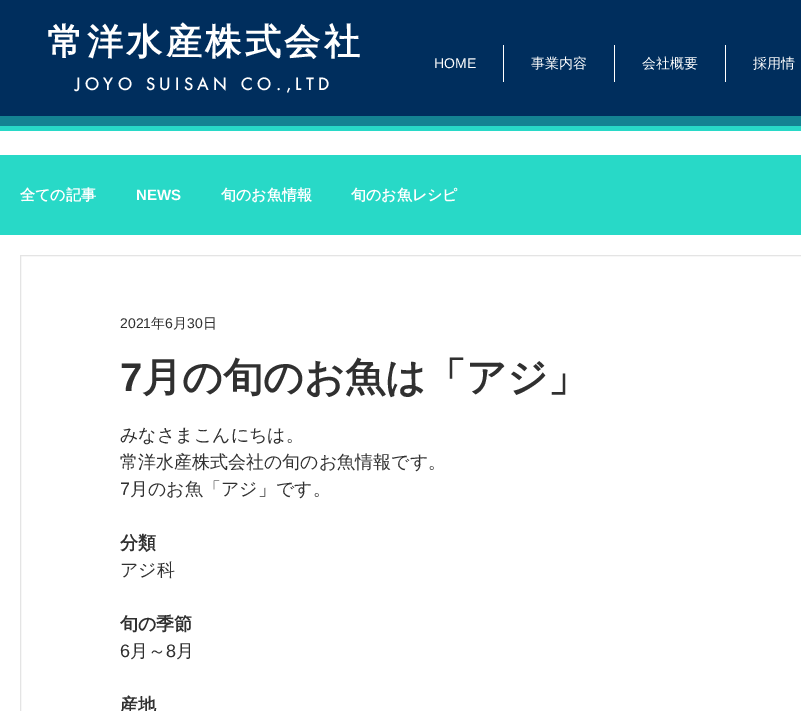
%!PS-Adobe-3.0
%%BoundingBox: 0 0 801 711
%%LanguageLevel: 3
%%Pages: 1
%%EndComments
%%BeginProlog
%%EndProlog
%%BeginSetup
<< /PageSize [801 711] >> setpagedevice
%%EndSetup
%%Page: 1 1
0 711 translate 1 -1 scale
4 setmiterlimit
1 setgray
0 0 801 711 rectfill
0 0.18 0.365 setrgbcolor
0 0 801 116 rectfill
1 setgray
503 45 1 37 rectfill
614 45 1 37 rectfill
725 45 1 37 rectfill
0.078 0.514 0.573 setrgbcolor
0 116 801 10 rectfill
0.157 0.851 0.78 setrgbcolor
0 126 801 5 rectfill
0 155 801 80 rectfill
0.894 setgray
20.5 255.5 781 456 rectstroke
/WenQuanYiZenHei-Bold [36 0 0 -36 0 0] selectfont
1 setgray
47 54 moveto 3.5 0 (常洋水産株式会社) ashow
/futura-Bold [16 0 0 -16 0 0] selectfont
75 90 moveto 4.75 0 (JOYO SUISAN CO.,LTD) ashow
/LiberationSans-Regular [14 0 0 -14 0 0] selectfont
434 68 moveto (HOME) show
/WenQuanYiZenHei-Medium [14 0 0 -14 0 0] selectfont
531 68 moveto (事業内容) show
642 68 moveto (会社概要) show
753 68 moveto (採用情) show
/WenQuanYiZenHei-Bold [15 0 0 -15 0 0] selectfont
20 200 moveto (全ての記事) show
/LiberationSans-Bold [15 0 0 -15 0 0] selectfont
136 200 moveto (NEWS) show
/WenQuanYiZenHei-Bold [15 0 0 -15 0 0] selectfont
221 200 moveto (旬のお魚情報) show
351 200 moveto (旬のお魚レシピ) show
/LiberationSans-Regular [14 0 0 -14 0 0] selectfont
0.188 setgray
120 328 moveto (2021) show
/WenQuanYiZenHei-Medium [14 0 0 -14 0 0] selectfont
151 328 moveto (年) show
/LiberationSans-Regular [14 0 0 -14 0 0] selectfont
165 328 moveto (6) show
/WenQuanYiZenHei-Medium [14 0 0 -14 0 0] selectfont
173 328 moveto (月) show
/LiberationSans-Regular [14 0 0 -14 0 0] selectfont
187 328 moveto (30) show
/WenQuanYiZenHei-Medium [14 0 0 -14 0 0] selectfont
203 328 moveto (日) show
/LiberationSans-Bold [40 0 0 -40 0 0] selectfont
120 391 moveto (7) show
/WenQuanYiZenHei-Bold [40 0 0 -40 0 0] selectfont
142 391 moveto (月の旬のお魚は「アジ」) show
/WenQuanYiZenHei-Medium [18 0 0 -18 0 0] selectfont
120 441 moveto (みなさまこんにちは。) show
120 468 moveto (常洋水産株式会社の旬のお魚情報です。) show
/LiberationSans-Regular [18 0 0 -18 0 0] selectfont
120 495 moveto (7) show
/WenQuanYiZenHei-Medium [18 0 0 -18 0 0] selectfont
130 495 moveto (月のお魚「アジ」です。) show
/WenQuanYiZenHei-Bold [18 0 0 -18 0 0] selectfont
120 549 moveto (分類) show
/WenQuanYiZenHei-Medium [18 0 0 -18 0 0] selectfont
120 576 moveto (アジ科) show
/WenQuanYiZenHei-Bold [18 0 0 -18 0 0] selectfont
120 630 moveto (旬の季節) show
/LiberationSans-Regular [18 0 0 -18 0 0] selectfont
120 657 moveto (6) show
/WenQuanYiZenHei-Medium [18 0 0 -18 0 0] selectfont
130 657 moveto (月～) show
/LiberationSans-Regular [18 0 0 -18 0 0] selectfont
166 657 moveto (8) show
/WenQuanYiZenHei-Medium [18 0 0 -18 0 0] selectfont
176 657 moveto (月) show
/WenQuanYiZenHei-Bold [18 0 0 -18 0 0] selectfont
120 711 moveto (産地) show
showpage
%%EOF
